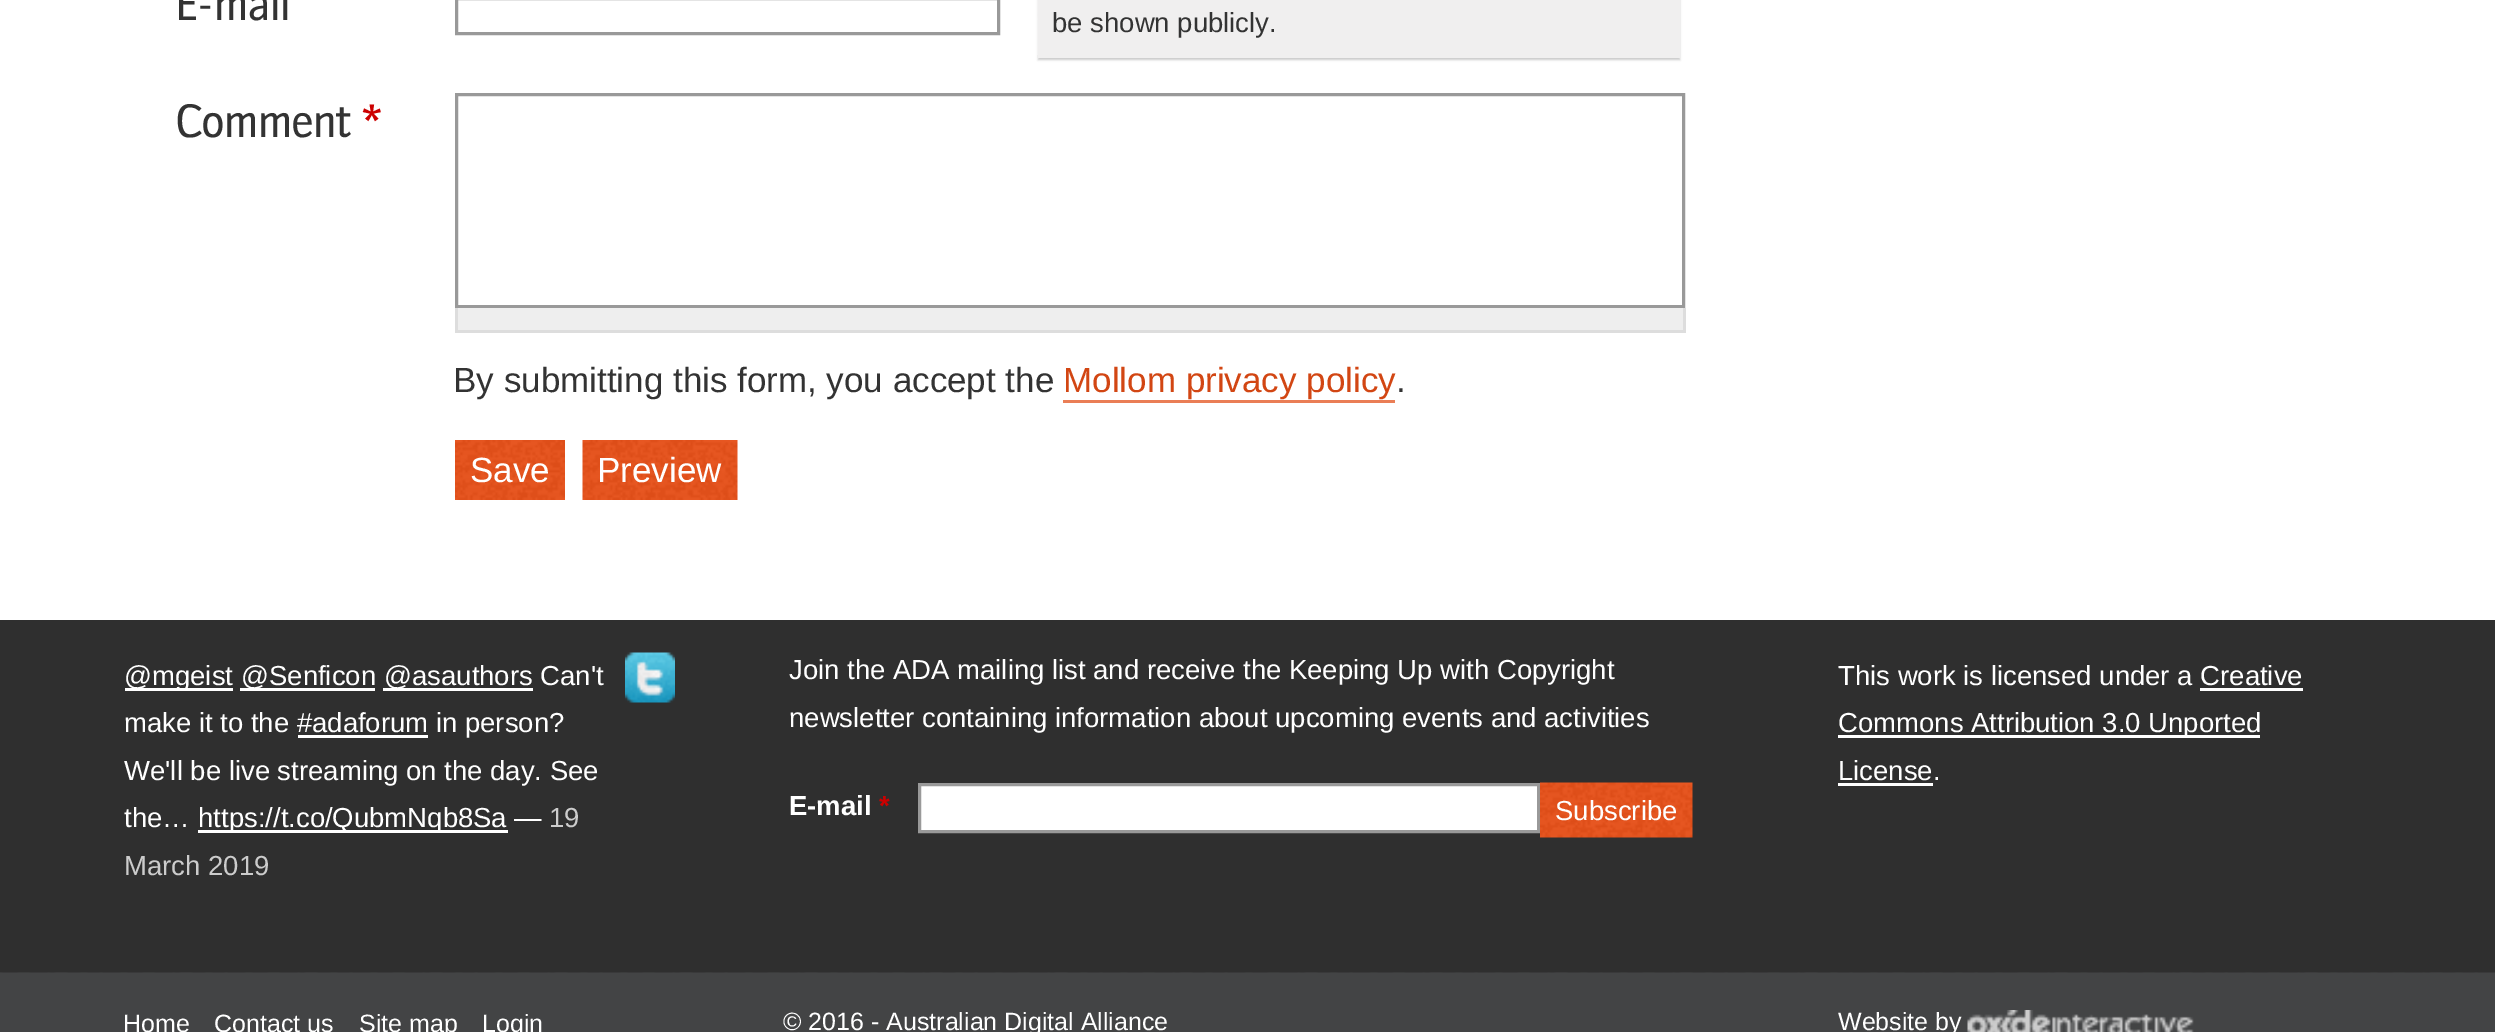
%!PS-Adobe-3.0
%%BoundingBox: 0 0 2495 1032
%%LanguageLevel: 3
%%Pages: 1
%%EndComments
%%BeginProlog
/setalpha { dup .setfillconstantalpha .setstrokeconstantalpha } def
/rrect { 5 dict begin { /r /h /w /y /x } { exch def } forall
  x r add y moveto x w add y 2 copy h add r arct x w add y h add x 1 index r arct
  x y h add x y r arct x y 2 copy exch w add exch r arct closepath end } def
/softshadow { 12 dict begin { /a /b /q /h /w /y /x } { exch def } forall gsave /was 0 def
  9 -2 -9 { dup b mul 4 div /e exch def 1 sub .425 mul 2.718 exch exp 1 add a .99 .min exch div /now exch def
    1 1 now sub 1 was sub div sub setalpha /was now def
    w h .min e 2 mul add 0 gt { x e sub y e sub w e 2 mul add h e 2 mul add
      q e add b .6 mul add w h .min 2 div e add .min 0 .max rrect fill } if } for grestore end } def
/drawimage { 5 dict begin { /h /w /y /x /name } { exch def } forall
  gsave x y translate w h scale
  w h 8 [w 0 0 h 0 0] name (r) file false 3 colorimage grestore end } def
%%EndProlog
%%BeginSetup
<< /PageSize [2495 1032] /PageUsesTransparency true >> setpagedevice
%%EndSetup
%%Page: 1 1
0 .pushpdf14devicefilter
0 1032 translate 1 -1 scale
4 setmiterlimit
0.263 0.267 0.271 setrgbcolor
0 0 2495 1032 rectfill
1 setgray
0 0 2495 620 rectfill
0.6 setgray
3 setlinewidth
456.5 -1.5 542 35 rectstroke
0 setgray
1038 -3 642 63 0 1 0.2 softshadow
0.941 0.937 0.937 setrgbcolor
1038 0 642 58 rectfill
(images/1.raw) 1037 0 1 55 drawimage
0.6 setgray
456.5 94.5 1227 212 rectstroke
0.933 setgray
458 308 1225 22 rectfill
0.867 setgray
1683 308 3 25 rectfill
455 330 1230 3 rectfill
455 308 3 25 rectfill
0.918 0.494 0.337 setrgbcolor
1063 400 332 3 rectfill
(images/2.raw) 455 440 110 60 drawimage
(images/3.raw) 582 440 156 60 drawimage
0.184 setgray
0 620 2495 353 rectfill
1 setgray
125 688 108 3 rectfill
240 688 135 3 rectfill
383 688 150 3 rectfill
298 735 130 3 rectfill
198 830 310 3 rectfill
(images/4.raw) 625 652 50 51 drawimage
newpath 919.5 784.5 moveto 1538.5 784.5 lineto 1538.5 831.5 lineto 919.5 831.5 lineto closepath gsave fill grestore
0.6 setgray
stroke
(images/5.raw) 1540 782 153 56 drawimage
1 setgray
2200 688 103 3 rectfill
1838 735 422 3 rectfill
1838 783 95 3 rectfill
(images/6.raw) 0 972 2495 1 drawimage
(images/7.raw) 1967 1010 227 22 drawimage
/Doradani-Regular [45 0 0 -45 0 0] selectfont
0.2 setgray
175 20 moveto (E-mail) show
/LiberationSans-Regular [27.5 0 0 -27.5 0 0] selectfont
1052 32 moveto (be shown publicly.) show
/Doradani-Regular [45 0 0 -45 0 0] selectfont
175 137 moveto (Comment) show
0.8 0 0 setrgbcolor
362 137 moveto (*) show
/LiberationSans-Regular [35 0 0 -35 0 0] selectfont
0.2 setgray
453 392 moveto (By submitting this form, you accept the) show
0.824 0.275 0.075 setrgbcolor
1063 392 moveto (Mollom privacy policy) show
0.2 setgray
1396 392 moveto (.) show
1 setgray
470 482 moveto (Save) show
597 482 moveto (Preview) show
/LiberationSans-Regular [27.5 0 0 -27.5 0 0] selectfont
124 685 moveto (@mgeist) show
241 685 moveto (@Senficon) show
384 685 moveto (@asauthors Can't) show
124 732 moveto (make it to the #adaforum in person?) show
124 780 moveto (We'll be live streaming on the day. See) show
124 827 moveto (the…) show
198 827 moveto (https://t.co/QubmNqb8Sa —) show
0.8 setgray
549 827 moveto (19) show
124 875 moveto (March 2019) show
1 setgray
789 679 moveto (Join the ADA mailing list and receive the Keeping Up with Copyright) show
789 727 moveto (newsletter containing information about upcoming events and activities) show
/LiberationSans-Bold [27.5 0 0 -27.5 0 0] selectfont
789 815 moveto (E-mail) show
0.8 0 0 setrgbcolor
879 815 moveto (*) show
/LiberationSans-Regular [27.5 0 0 -27.5 0 0] selectfont
1 setgray
1555 820 moveto (Subscribe) show
1838 685 moveto (This work is licensed under a Creative) show
1838 732 moveto (Commons Attribution 3.0 Unported) show
1838 780 moveto (License.) show
/LiberationSans-Regular [25 0 0 -25 0 0] selectfont
123 1032 moveto (Home) show
214 1032 moveto (Contact us) show
359 1032 moveto (Site map) show
482 1032 moveto (Login) show
783 1030 moveto (© 2016 - Australian Digital Alliance) show
1838 1030 moveto (Website by) show
.poppdf14devicefilter showpage
%%EOF
